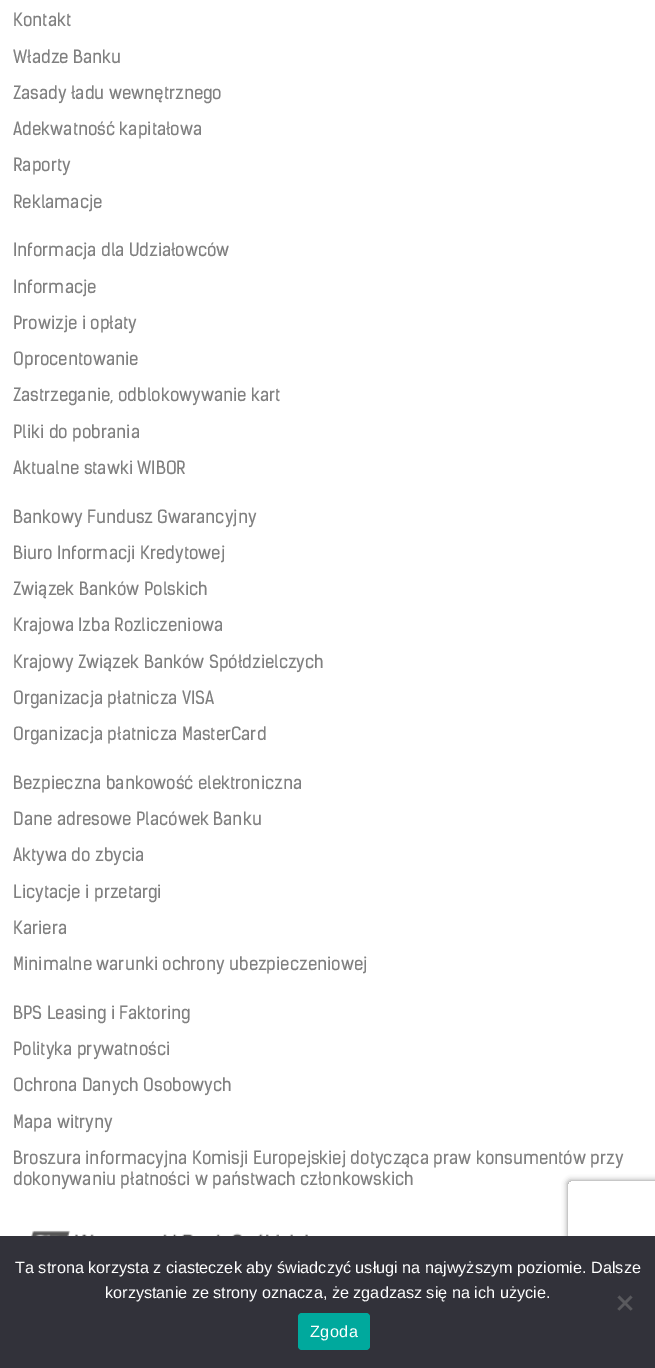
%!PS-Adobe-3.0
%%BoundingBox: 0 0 655 1368
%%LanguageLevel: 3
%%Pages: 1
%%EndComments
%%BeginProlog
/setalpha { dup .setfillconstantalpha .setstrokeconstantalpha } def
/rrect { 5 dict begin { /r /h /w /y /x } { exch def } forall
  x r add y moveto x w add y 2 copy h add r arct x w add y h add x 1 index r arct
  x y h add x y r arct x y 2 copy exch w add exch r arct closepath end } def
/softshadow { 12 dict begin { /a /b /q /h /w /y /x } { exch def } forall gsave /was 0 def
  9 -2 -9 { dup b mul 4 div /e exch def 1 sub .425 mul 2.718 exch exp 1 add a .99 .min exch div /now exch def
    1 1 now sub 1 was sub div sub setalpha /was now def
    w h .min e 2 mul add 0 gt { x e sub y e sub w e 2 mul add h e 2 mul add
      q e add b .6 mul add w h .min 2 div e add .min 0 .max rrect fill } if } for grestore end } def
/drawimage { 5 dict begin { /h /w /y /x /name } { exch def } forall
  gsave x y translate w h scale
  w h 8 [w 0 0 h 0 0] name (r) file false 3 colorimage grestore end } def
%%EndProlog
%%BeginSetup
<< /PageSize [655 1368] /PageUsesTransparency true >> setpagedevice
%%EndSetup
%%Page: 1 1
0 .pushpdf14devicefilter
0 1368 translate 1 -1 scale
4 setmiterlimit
1 setgray
0 0 655 1368 rectfill
(images/1.raw) 31 1230 277 6 drawimage
gsave
newpath 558 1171 moveto 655 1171 lineto 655 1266 lineto 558 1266 lineto closepath 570.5 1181 moveto 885.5 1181 lineto 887 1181 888 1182 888 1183.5 curveto 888 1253.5 lineto 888 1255 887 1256 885.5 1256 curveto 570.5 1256 lineto 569 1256 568 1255 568 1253.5 curveto 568 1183.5 lineto 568 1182 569 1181 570.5 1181 curveto closepath eoclip newpath
0.502 setgray
568 1181 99 75 2.5 3 1 softshadow
grestore
0.196 0.196 0.227 setrgbcolor
0 1236 655 132 rectfill
0.349 0.349 0.365 setrgbcolor
newpath 630.5 1295.5 moveto 632.5 1297.5 lineto 619.5 1310.5 lineto 617.5 1309 lineto closepath fill
newpath 617.5 1297.5 moveto 619.5 1295.5 lineto 632.5 1309 lineto 630.5 1310.5 lineto closepath fill
0 0.663 0.616 setrgbcolor
298 1313 72 37 4 rrect fill
/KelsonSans-Regular [17.5 0 0 -17.5 0 0] selectfont
0.502 setgray
13 26 moveto (Kontakt) show
13 63 moveto (Władze Banku) show
13 99 moveto (Zasady ładu wewnętrznego) show
13 135 moveto (Adekwatność kapitałowa) show
13 171 moveto (Raporty) show
13 208 moveto (Reklamacje) show
13 256 moveto (Informacja dla Udziałowców) show
13 293 moveto (Informacje) show
13 329 moveto (Prowizje i opłaty) show
13 365 moveto (Oprocentowanie) show
13 401 moveto (Zastrzeganie, odblokowywanie kart) show
13 438 moveto (Pliki do pobrania) show
13 474 moveto (Aktualne stawki WIBOR) show
13 523 moveto (Bankowy Fundusz Gwarancyjny) show
13 559 moveto (Biuro Informacji Kredytowej) show
13 595 moveto (Związek Banków Polskich) show
13 631 moveto (Krajowa Izba Rozliczeniowa) show
13 668 moveto (Krajowy Związek Banków Spółdzielczych) show
13 704 moveto (Organizacja płatnicza VISA) show
13 740 moveto (Organizacja płatnicza MasterCard) show
13 789 moveto (Bezpieczna bankowość elektroniczna) show
13 825 moveto (Dane adresowe Placówek Banku) show
13 861 moveto (Aktywa do zbycia) show
13 898 moveto (Licytacje i przetargi) show
13 934 moveto (Kariera) show
13 970 moveto (Minimalne warunki ochrony ubezpieczeniowej) show
13 1019 moveto (BPS Leasing i Faktoring) show
13 1055 moveto (Polityka prywatności) show
13 1091 moveto (Ochrona Danych Osobowych) show
13 1128 moveto (Mapa witryny) show
13 1164 moveto (Broszura informacyjna Komisji Europejskiej dotycząca praw konsumentów przy) show
13 1185 moveto (dokonywaniu płatności w państwach członkowskich) show
/LiberationSans-Regular [16.25 0 0 -16.25 0 0] selectfont
1 setgray
15 1273 moveto (Ta strona korzysta z ciasteczek aby świadczyć usługi na najwyższym poziomie. Dalsze) show
105 1298 moveto (korzystanie ze strony oznacza, że zgadzasz się na ich użycie.) show
310 1337 moveto 0.5 0 (Zgoda) ashow
.poppdf14devicefilter showpage
%%EOF
